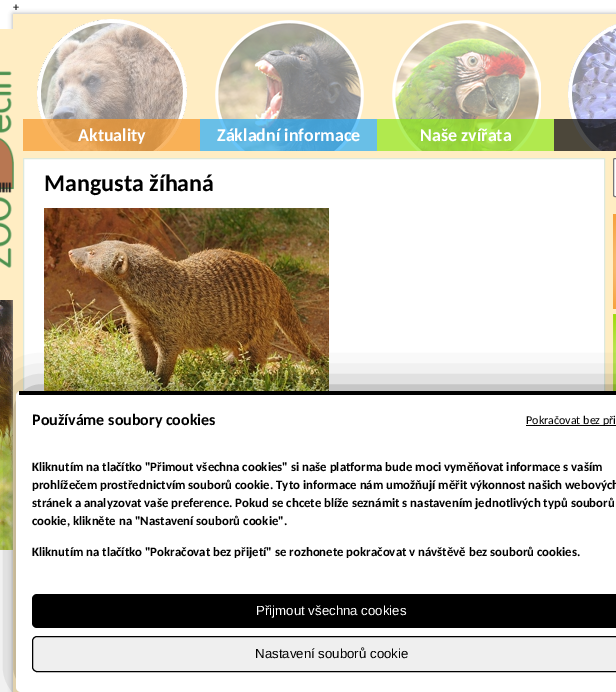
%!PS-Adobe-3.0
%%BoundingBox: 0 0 616 692
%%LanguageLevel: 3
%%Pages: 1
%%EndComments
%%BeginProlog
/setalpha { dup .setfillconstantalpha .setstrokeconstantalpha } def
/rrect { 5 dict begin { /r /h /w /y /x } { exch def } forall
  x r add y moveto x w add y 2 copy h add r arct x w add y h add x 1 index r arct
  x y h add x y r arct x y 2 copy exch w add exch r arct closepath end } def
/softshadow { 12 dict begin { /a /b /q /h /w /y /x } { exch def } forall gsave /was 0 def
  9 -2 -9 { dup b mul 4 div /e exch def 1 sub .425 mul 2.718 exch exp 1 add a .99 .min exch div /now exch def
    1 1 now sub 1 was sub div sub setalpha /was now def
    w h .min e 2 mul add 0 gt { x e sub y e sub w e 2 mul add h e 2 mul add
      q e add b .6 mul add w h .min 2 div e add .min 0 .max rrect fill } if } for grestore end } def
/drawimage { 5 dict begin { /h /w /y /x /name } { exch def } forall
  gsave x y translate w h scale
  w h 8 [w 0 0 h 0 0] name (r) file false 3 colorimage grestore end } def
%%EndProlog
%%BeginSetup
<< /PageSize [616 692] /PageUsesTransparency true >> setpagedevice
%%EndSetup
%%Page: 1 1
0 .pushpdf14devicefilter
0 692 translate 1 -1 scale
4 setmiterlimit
1 setgray
0 0 616 692 rectfill
(images/1.raw) 0 300 13 250 drawimage
0.667 setgray
13 14 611 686 0 2.5 1 softshadow
1 0.929 0.765 setrgbcolor
13 14 603 678 rectfill
0 29 13 271 rectfill
(images/2.raw) 0 71 14 197 drawimage
(images/3.raw) 37 19 150 132 drawimage
0.7 setalpha
0.965 0.596 0.161 setrgbcolor
23 119 177 32 rectfill
1 setalpha
(images/4.raw) 215 20 149 131 drawimage
0.7 setalpha
0.161 0.675 0.965 setrgbcolor
200 119 177 32 rectfill
1 setalpha
(images/5.raw) 392 20 149 131 drawimage
0.7 setalpha
0.565 0.91 0.11 setrgbcolor
377 119 177 32 rectfill
1 setalpha
(images/6.raw) 568 24 48 127 drawimage
0.7 setalpha
0 setgray
554 119 62 32 rectfill
1 setalpha
1 setgray
24 159 580 232 rectfill
0.867 0.914 0.867 setrgbcolor
23.5 158.5 581 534 rectstroke
(images/7.raw) 44 208 285 183 drawimage
1 setgray
613.5 158.5 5 38 1.5 rrect gsave fill grestore
0.463 setgray
stroke
(images/8.raw) 613 214 3 95 drawimage
(images/9.raw) 613 314 3 77 drawimage
0 setgray
29 400 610 279 0 21 0.75 softshadow
1 setgray
16 391 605 301 5 rrect fill
0 setgray
19 391 597 4 rectfill
526 425 90 1 rectfill
32 594 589 34 5 rrect fill
0.937 setgray
32.5 636.5 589 35 4.5 rrect gsave fill grestore
0 setgray
stroke
/Carlito-Regular [12 0 0 -12 0 0] selectfont
13 11 moveto (+) show
/Carlito-Bold [18 0 0 -18 0 0] selectfont
1 setgray
78 141 moveto (Aktuality) show
217 141 moveto (Základní informace) show
420 141 moveto (Naše zvířata) show
/Carlito-Bold [24 0 0 -24 0 0] selectfont
0 setgray
44 191 moveto (Mangusta žíhaná) show
/Carlito-Bold [16 0 0 -16 0 0] selectfont
32 425 moveto (Používáme soubory cookies) show
/Carlito-Regular [12 0 0 -12 0 0] selectfont
526 424 moveto (Pokračovat bez při) show
/Carlito-Bold [12.8 0 0 -12.8 0 0] selectfont
32 471 moveto (Kliknutím na tlačítko "Přimout všechna cookies" si naše platforma bude moci vyměňovat informace s vaším) show
32 489 moveto (prohlížečem prostřednictvím souborů cookie. Tyto informace nám umožňují měřit výkonnost našich webových) show
32 507 moveto (stránek a analyzovat vaše preference. Pokud se chcete blíže seznámit s nastavením jednotlivých typů souborů) show
32 525 moveto (cookie, klikněte na "Nastavení souborů cookie".) show
32 556 moveto (Kliknutím na tlačítko "Pokračovat bez přijetí" se rozhonete pokračovat v návštěvě bez souborů cookies.) show
/LiberationSans-Regular [13.25 0 0 -13.25 0 0] selectfont
1 setgray
256 615 moveto (Přijmout všechna cookies) show
0 setgray
255 658 moveto (Nastavení souborů cookie) show
.poppdf14devicefilter showpage
%%EOF
